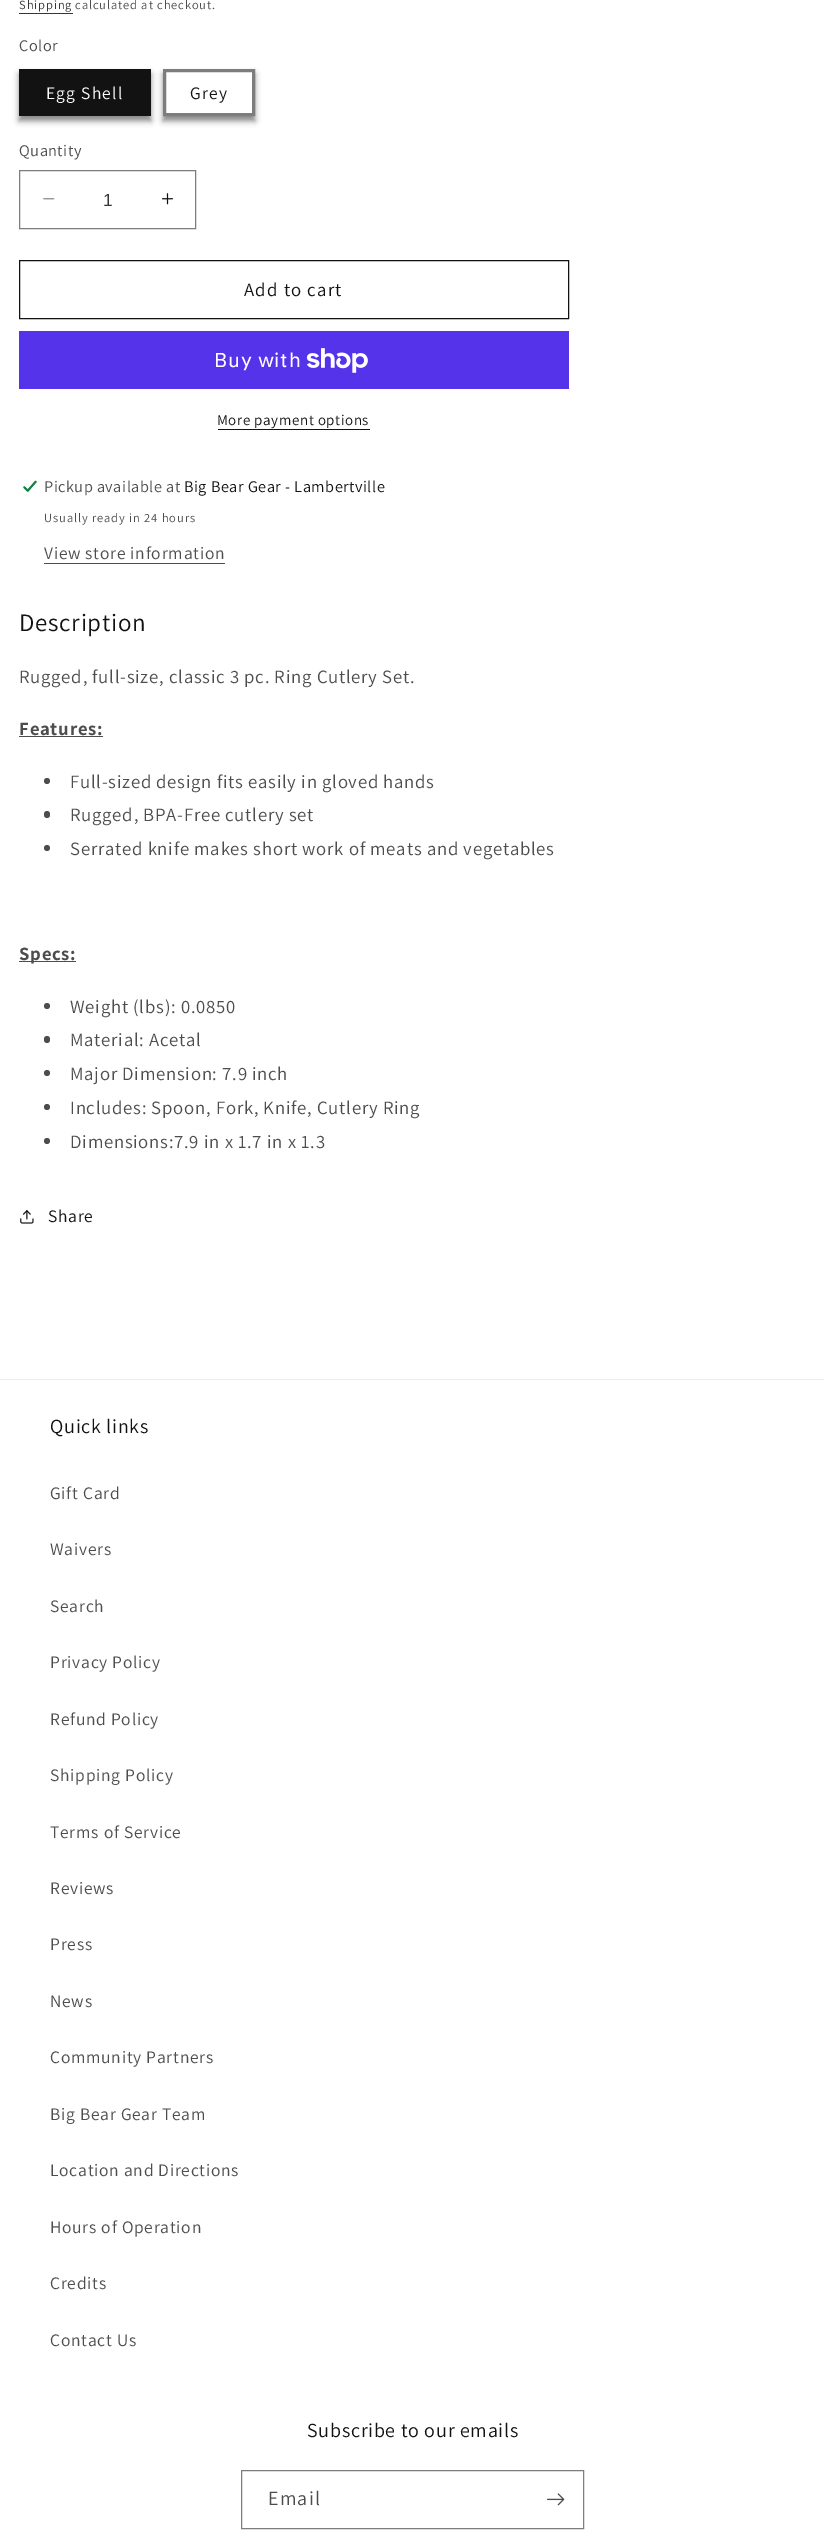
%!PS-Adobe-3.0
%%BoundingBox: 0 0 824 2544
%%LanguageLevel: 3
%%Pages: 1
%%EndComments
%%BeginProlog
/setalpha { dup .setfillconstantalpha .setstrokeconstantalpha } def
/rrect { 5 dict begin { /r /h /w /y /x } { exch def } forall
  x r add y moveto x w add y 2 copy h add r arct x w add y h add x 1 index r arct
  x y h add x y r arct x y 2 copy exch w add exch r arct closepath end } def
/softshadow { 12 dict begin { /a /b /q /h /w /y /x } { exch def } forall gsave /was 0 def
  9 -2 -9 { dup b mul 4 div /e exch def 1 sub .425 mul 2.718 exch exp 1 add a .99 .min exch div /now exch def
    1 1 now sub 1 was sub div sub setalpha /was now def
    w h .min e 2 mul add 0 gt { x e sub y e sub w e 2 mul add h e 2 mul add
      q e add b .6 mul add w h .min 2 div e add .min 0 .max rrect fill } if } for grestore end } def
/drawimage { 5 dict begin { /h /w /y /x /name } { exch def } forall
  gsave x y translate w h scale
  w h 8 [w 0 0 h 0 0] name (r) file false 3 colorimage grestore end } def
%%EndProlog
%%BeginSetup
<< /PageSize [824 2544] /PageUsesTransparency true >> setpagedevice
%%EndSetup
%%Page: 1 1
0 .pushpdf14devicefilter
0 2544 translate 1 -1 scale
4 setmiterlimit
1 setgray
0 0 824 2544 rectfill
0.212 setgray
19 13 54 1 rectfill
0.071 setgray
19 74 132 47 0 3 0.5 softshadow
19 69 132 47 rectfill
gsave
newpath 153 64 moveto 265 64 lineto 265 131 lineto 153 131 lineto closepath 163 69 moveto 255 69 lineto 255 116 lineto 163 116 lineto closepath eoclip newpath
163 74 92 47 0 3 0.5 softshadow
grestore
0.49 setgray
3 setlinewidth
164.5 70.5 89 44 rectstroke
(images/1.raw) 43 198 12 2 drawimage
(images/2.raw) 161 193 13 12 drawimage
1 setlinewidth
19.5 170.5 176 58 rectstroke
0.071 setgray
19.5 260.5 549 58 rectstroke
0.329 0.2 0.922 setrgbcolor
19 331 550 58 rectfill
(images/3.raw) 306 348 62 25 drawimage
0.071 setgray
218 429 152 1 rectfill
(images/4.raw) 22 480 16 13 drawimage
0.302 setgray
44 563 181 1 rectfill
19 736 84 1 rectfill
newpath 47 781 3 0 360 arc closepath fill
44 811 6 7 3 rrect fill
newpath 47 848 3 0 360 arc closepath fill
19 961 57 1 rectfill
newpath 47 1006 3 0 360 arc closepath fill
44 1036 6 7 3 rrect fill
newpath 47 1073 3 0 360 arc closepath fill
newpath 47 1107 3 0 360 arc closepath fill
newpath 47 1141 3 0 360 arc closepath fill
(images/5.raw) 20 1210 14 14 drawimage
0.925 setgray
0 1379 824 1 rectfill
0.49 setgray
241.5 2470.5 342 58 rectstroke
(images/6.raw) 547 2493 18 13 drawimage
/Assistant-Regular [12.5 0 0 -12.5 0 0] selectfont
0.212 setgray
19 9 moveto 0.9 0 (Shipping) ashow
0.302 setgray
75 9 moveto 0.9 0 (calculated at checkout.) ashow
/Assistant-Regular [16.25 0 0 -16.25 0 0] selectfont
19 51 moveto 0.5 0 (Color) ashow
/Assistant-Regular [17.5 0 0 -17.5 0 0] selectfont
1 setgray
46 99 moveto 1.25 0 (Egg Shell) ashow
0.071 setgray
190 99 moveto 1.25 0 (Grey) ashow
/Assistant-Regular [16.25 0 0 -16.25 0 0] selectfont
0.302 setgray
19 156 moveto 0.5 0 (Quantity) ashow
/LiberationSans-Regular [17.5 0 0 -17.5 0 0] selectfont
0.212 setgray
103 206 moveto (1) show
/Assistant-Regular [18.75 0 0 -18.75 0 0] selectfont
0.071 setgray
244 296 moveto 1.25 0 (Add to cart) ashow
/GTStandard-Regular [20 0 0 -20 0 0] selectfont
1 setgray
214 367 moveto 0.75 0 (Buy with) ashow
/Assistant-Regular [15 0 0 -15 0 0] selectfont
0.071 setgray
217 425 moveto 0.6 0 (More payment options) ashow
/Assistant-Regular [16.25 0 0 -16.25 0 0] selectfont
0.302 setgray
44 492 moveto 0.5 0 (Pickup available at) ashow
0.071 setgray
184 492 moveto 0.5 0 (Big Bear Gear - Lambertville) ashow
/Assistant-Regular [12.5 0 0 -12.5 0 0] selectfont
0.302 setgray
44 522 moveto 0.9 0 (Usually ready in 24 hours) ashow
/Assistant-Regular [17.5 0 0 -17.5 0 0] selectfont
44 559 moveto 0.75 0 (View store information) ashow
/Assistant-Regular [25 0 0 -25 0 0] selectfont
0.071 setgray
19 631 moveto 0.75 0 (Description) ashow
/Assistant-Regular [18.75 0 0 -18.75 0 0] selectfont
0.302 setgray
19 683 moveto 0.75 0 (Rugged, full-size, classic 3 pc. Ring Cutlery Set.) ashow
/Assistant-Bold [18.75 0 0 -18.75 0 0] selectfont
19 735 moveto 0.75 0 (Features:) ashow
/Assistant-Regular [18.75 0 0 -18.75 0 0] selectfont
70 788 moveto 0.75 0 (Full-sized design fits easily in gloved hands) ashow
70 821 moveto 0.75 0 (Rugged, BPA-Free cutlery set) ashow
70 855 moveto 0.75 0 (Serrated knife makes short work of meats and vegetables) ashow
/Assistant-Bold [18.75 0 0 -18.75 0 0] selectfont
19 960 moveto 0.75 0 (Specs:) ashow
/Assistant-Regular [18.75 0 0 -18.75 0 0] selectfont
70 1013 moveto 0.75 0 (Weight \(lbs\): 0.0850) ashow
70 1046 moveto 0.75 0 (Material: Acetal) ashow
70 1080 moveto 0.75 0 (Major Dimension: 7.9 inch) ashow
70 1114 moveto 0.75 0 (Includes: Spoon, Fork, Knife, Cutlery Ring) ashow
70 1148 moveto 0.75 0 (Dimensions:7.9 in x 1.7 in x 1.3) ashow
/Assistant-Regular [17.5 0 0 -17.5 0 0] selectfont
0.071 setgray
48 1222 moveto 0.75 0 (Share) ashow
/Assistant-Regular [20 0 0 -20 0 0] selectfont
50 1433 moveto 0.75 0 (Quick links) ashow
/Assistant-Regular [17.5 0 0 -17.5 0 0] selectfont
0.302 setgray
50 1499 moveto 0.75 0 (Gift Card) ashow
50 1555 moveto 0.75 0 (Waivers) ashow
50 1612 moveto 0.75 0 (Search) ashow
50 1668 moveto 0.75 0 (Privacy Policy) ashow
50 1725 moveto 0.75 0 (Refund Policy) ashow
50 1781 moveto 0.75 0 (Shipping Policy) ashow
50 1838 moveto 0.75 0 (Terms of Service) ashow
50 1894 moveto 0.75 0 (Reviews) ashow
50 1950 moveto 0.75 0 (Press) ashow
50 2007 moveto 0.75 0 (News) ashow
50 2063 moveto 0.75 0 (Community Partners) ashow
50 2120 moveto 0.75 0 (Big Bear Gear Team) ashow
50 2176 moveto 0.75 0 (Location and Directions) ashow
50 2233 moveto 0.75 0 (Hours of Operation) ashow
50 2289 moveto 0.75 0 (Credits) ashow
50 2346 moveto 0.75 0 (Contact Us) ashow
/Assistant-Regular [20 0 0 -20 0 0] selectfont
0.071 setgray
307 2437 moveto 0.75 0 (Subscribe to our emails) ashow
0.302 setgray
268 2505 moveto 1.25 0 (Email) ashow
.poppdf14devicefilter showpage
%%EOF
